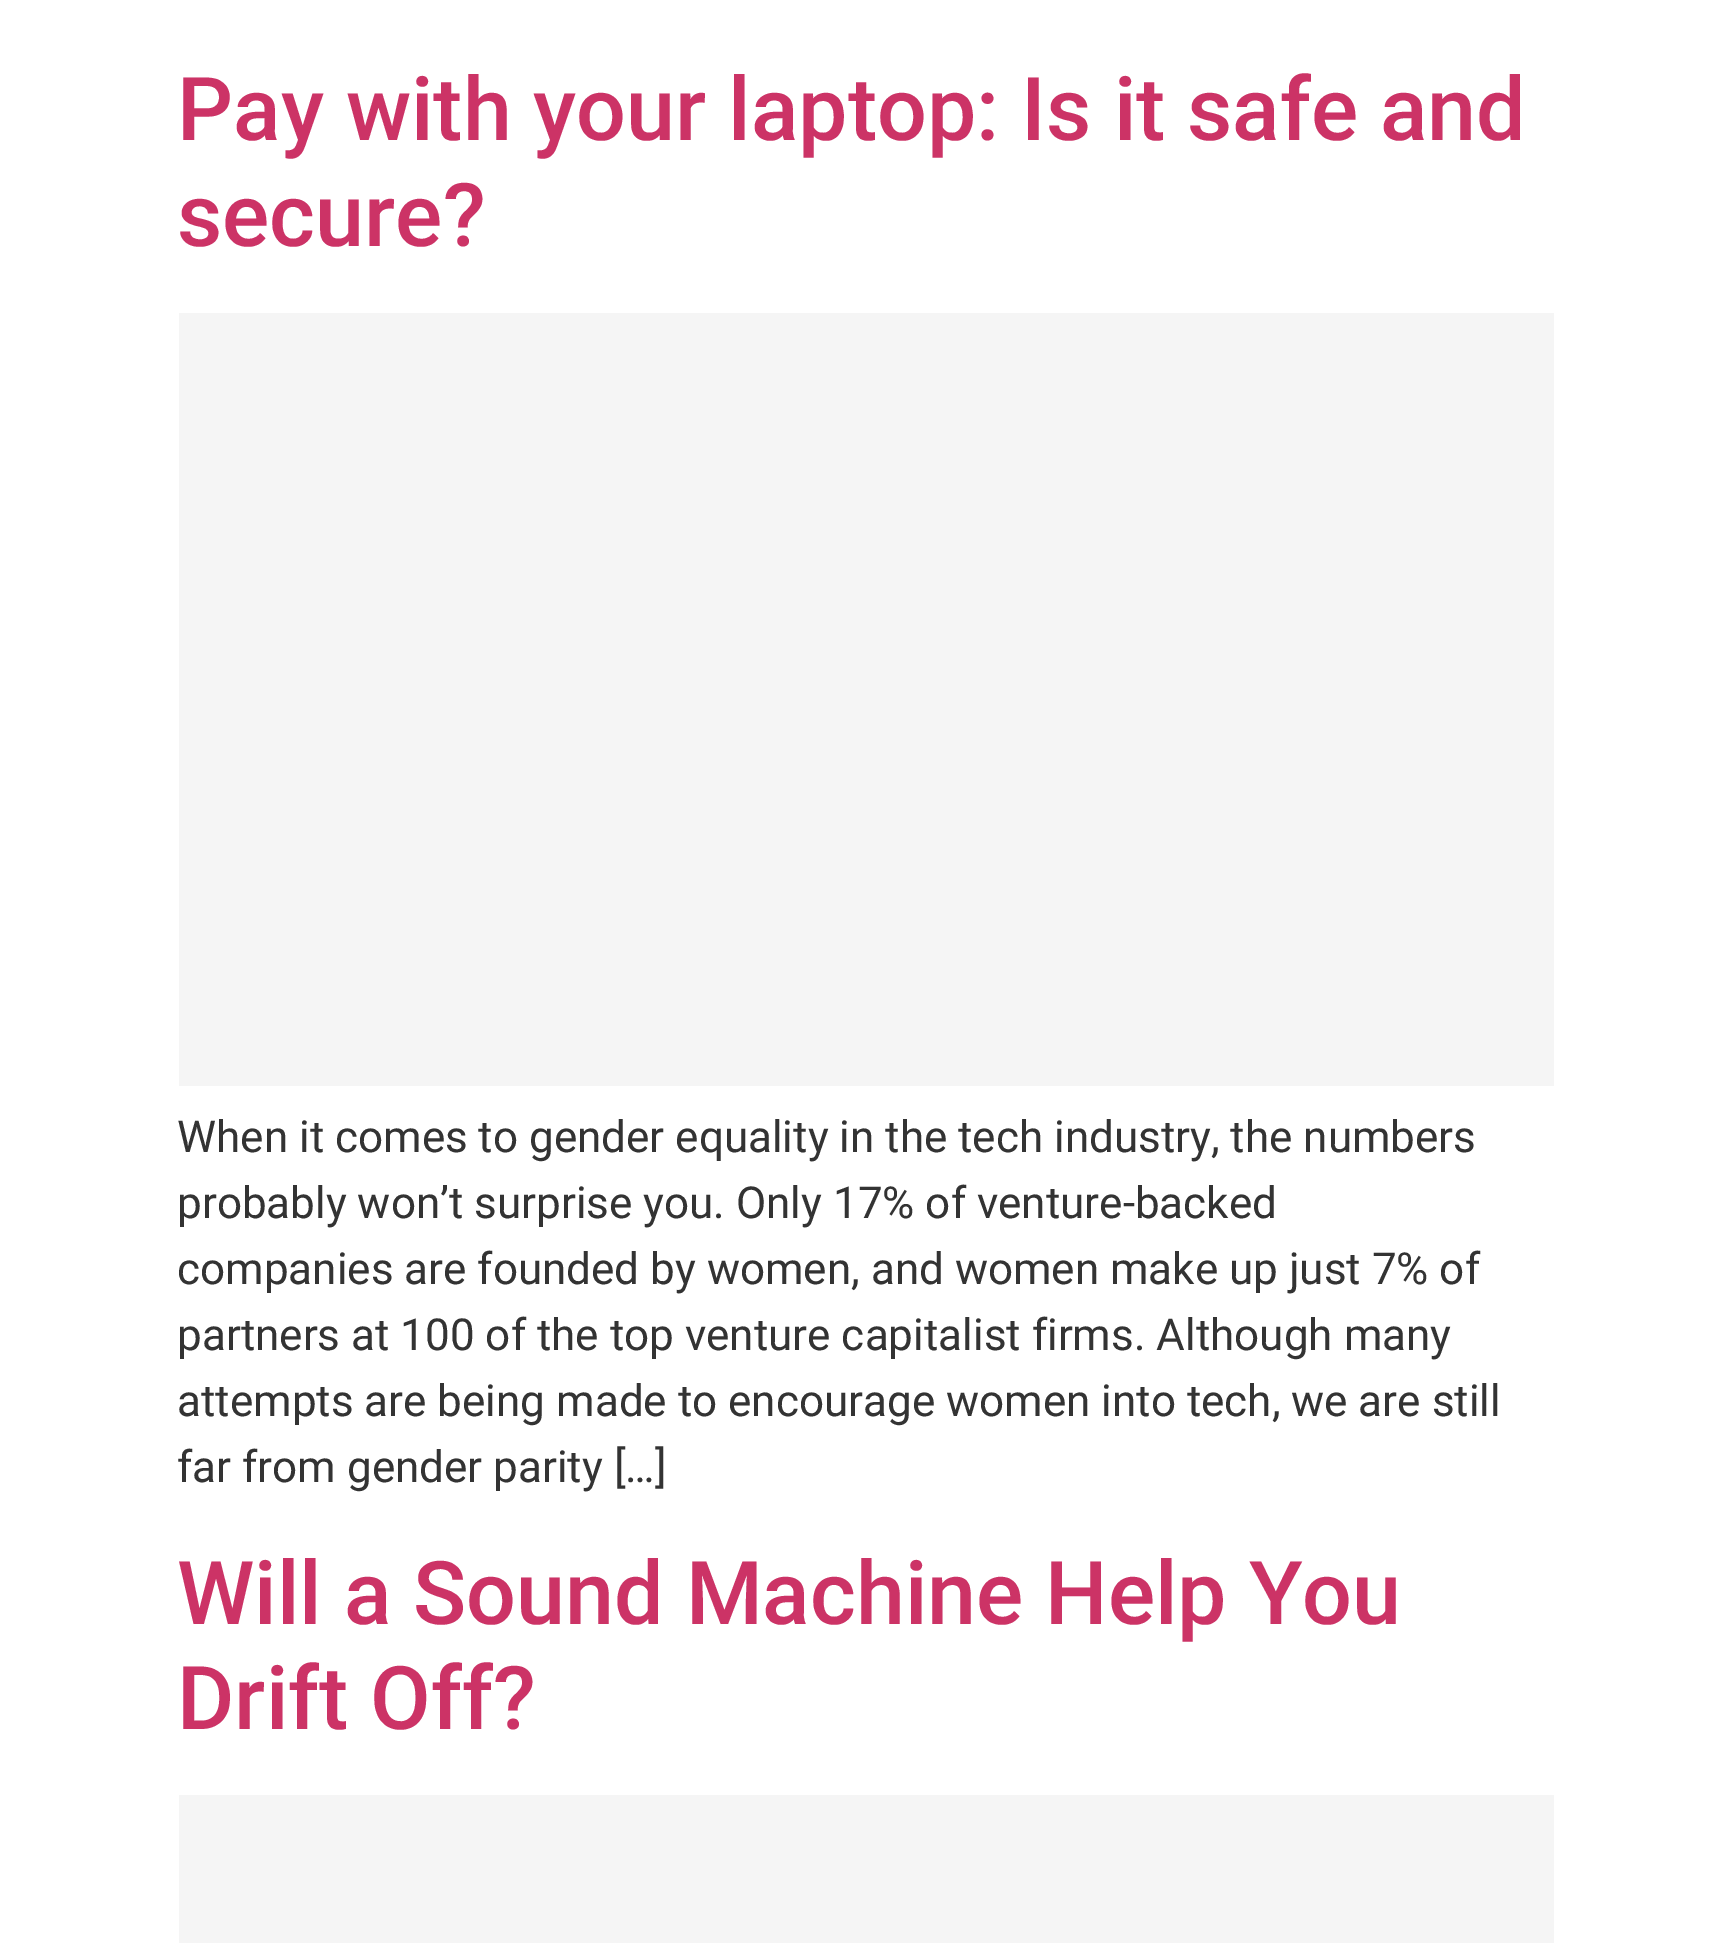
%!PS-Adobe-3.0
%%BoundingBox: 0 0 1729 1943
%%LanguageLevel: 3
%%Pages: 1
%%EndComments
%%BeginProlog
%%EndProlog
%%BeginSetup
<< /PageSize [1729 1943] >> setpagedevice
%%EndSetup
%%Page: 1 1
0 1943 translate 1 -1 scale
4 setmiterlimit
1 setgray
0 0 1729 1943 rectfill
0.961 setgray
179 313 1375 773 rectfill
179 1795 1375 148 rectfill
/Roboto-Medium [88 0 0 -88 0 0] selectfont
0.8 0.2 0.4 setrgbcolor
177 140 moveto (Pay with your laptop: Is it safe and) show
177 246 moveto (secure?) show
/Roboto-Regular [44 0 0 -44 0 0] selectfont
0.2 setgray
177 1152 moveto (When it comes to gender equality in the tech industry, the numbers) show
177 1218 moveto (probably won’t surprise you. Only 17% of venture-backed) show
177 1284 moveto (companies are founded by women, and women make up just 7% of) show
177 1350 moveto (partners at 100 of the top venture capitalist firms. Although many) show
177 1416 moveto (attempts are being made to encourage women into tech, we are still) show
177 1482 moveto (far from gender parity […]) show
/Roboto-Medium [88 0 0 -88 0 0] selectfont
0.8 0.2 0.4 setrgbcolor
177 1624 moveto (Will a Sound Machine Help You) show
177 1729 moveto (Drift Off?) show
showpage
%%EOF
